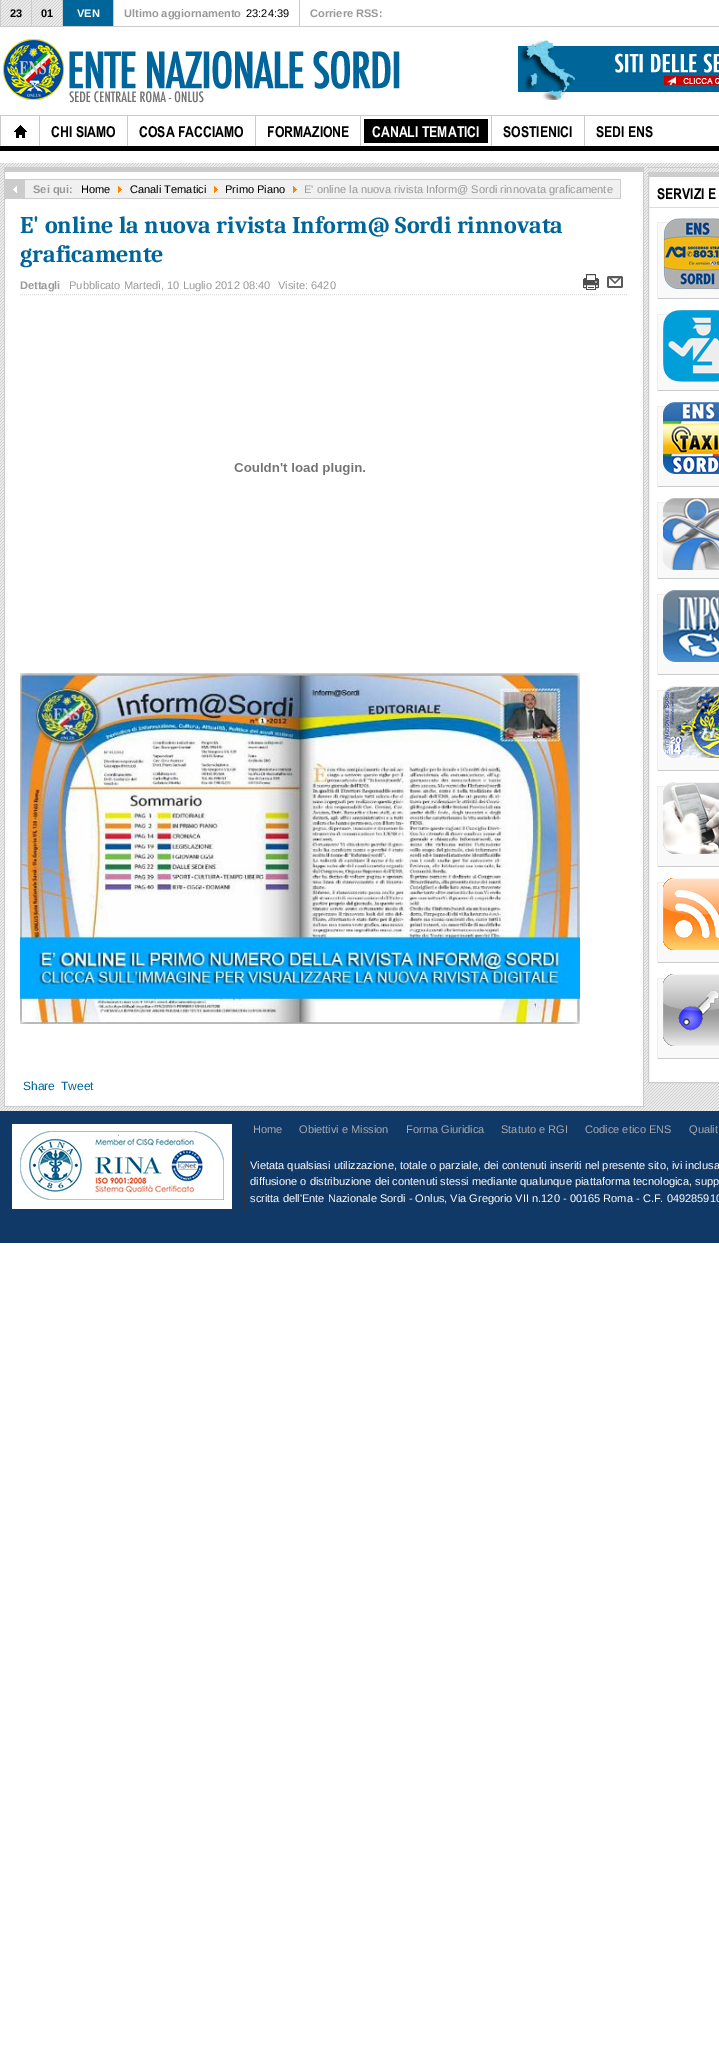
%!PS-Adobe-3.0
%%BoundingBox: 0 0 719 2045
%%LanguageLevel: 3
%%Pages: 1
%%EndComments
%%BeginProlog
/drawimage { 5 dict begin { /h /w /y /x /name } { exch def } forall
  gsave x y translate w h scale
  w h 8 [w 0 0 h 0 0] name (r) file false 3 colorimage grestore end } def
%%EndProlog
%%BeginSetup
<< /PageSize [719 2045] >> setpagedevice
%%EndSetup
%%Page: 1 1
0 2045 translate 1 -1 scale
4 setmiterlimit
1 setgray
0 0 719 2045 rectfill
0.8 setgray
0 26 719 1 rectfill
(images/1.raw) 1 0 61 26 drawimage
113 0 1 26 rectfill
0 0 1 26 rectfill
31 0 1 26 rectfill
62 0 1 26 rectfill
0 0.4 0.6 setrgbcolor
63 0 50 26 rectfill
0.8 setgray
299 0 1 26 rectfill
(images/2.raw) 3 39 397 64 drawimage
(images/3.raw) 518 40 201 60 drawimage
0 115 719 1 rectfill
0 setgray
0 146 719 5 rectfill
0.8 setgray
0 116 1 30 rectfill
(images/4.raw) 14 125 13 13 drawimage
39 116 1 30 rectfill
127 116 1 30 rectfill
255 116 1 30 rectfill
360 116 1 30 rectfill
0 setgray
364 119 124 24 rectfill
0.8 setgray
491 116 1 30 rectfill
584 116 1 30 rectfill
(images/5.raw) 0 163 719 948 drawimage
1 setgray
5 172 638 934 rectfill
0.8 setgray
4 167 640 5 rectfill
643 167 1 940 rectfill
4 1106 640 1 rectfill
4 167 1 940 rectfill
0.941 setgray
25 180 595 18 rectfill
0.8 setgray
25 179 596 1 rectfill
620 179 1 20 rectfill
25 198 596 1 rectfill
5 179 20 20 rectfill
(images/6.raw) 13 186 4 7 drawimage
(images/7.raw) 118 186 4 7 drawimage
(images/7.raw) 214 186 4 7 drawimage
(images/7.raw) 293 186 4 7 drawimage
0.867 setgray
[1 1] 0 setdash
newpath 20 294.5 moveto 628 294.5 lineto stroke
(images/8.raw) 583 274 16 16 drawimage
(images/9.raw) 607 276 16 12 drawimage
(images/10.raw) 234 463 131 12 drawimage
(images/11.raw) 20 673 560 351 drawimage
0.8 setgray
648 167 71 1 rectfill
1 setgray
649 177 70 905 rectfill
0.8 setgray
[] 0 setdash
648.5 172.5 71 910 rectstroke
649 173 70 4 rectfill
0.867 setgray
649 207 70 1 rectfill
0.976 setgray
658 223 61 75 rectfill
0.933 setgray
657 222 13 1 rectfill
0.8 setgray
657 298 62 1 rectfill
0.933 setgray
657 222 1 77 rectfill
(images/12.raw) 663 218 56 72 drawimage
0.976 setgray
658 315 61 75 rectfill
0.933 setgray
657 314 12 1 rectfill
0.8 setgray
657 390 62 1 rectfill
0.933 setgray
657 314 1 77 rectfill
(images/13.raw) 663 310 56 72 drawimage
0.976 setgray
658 407 61 79 rectfill
0.933 setgray
657 406 10 1 rectfill
0.8 setgray
657 486 62 1 rectfill
0.933 setgray
657 406 1 81 rectfill
(images/14.raw) 663 402 56 72 drawimage
0.976 setgray
658 503 61 75 rectfill
0.933 setgray
657 502 10 1 rectfill
0.8 setgray
657 578 62 1 rectfill
0.933 setgray
657 502 1 77 rectfill
(images/15.raw) 663 498 56 72 drawimage
0.976 setgray
658 595 61 79 rectfill
0.933 setgray
657 594 10 1 rectfill
0.8 setgray
657 674 62 1 rectfill
0.933 setgray
657 594 1 81 rectfill
(images/16.raw) 663 590 56 72 drawimage
0.976 setgray
658 691 61 79 rectfill
0.933 setgray
657 690 10 1 rectfill
0.8 setgray
657 770 62 1 rectfill
0.933 setgray
657 690 1 81 rectfill
(images/17.raw) 663 686 56 72 drawimage
0.976 setgray
658 787 61 79 rectfill
0.933 setgray
657 786 10 1 rectfill
0.8 setgray
657 866 62 1 rectfill
0.933 setgray
657 786 1 81 rectfill
(images/18.raw) 663 782 56 72 drawimage
0.976 setgray
658 883 61 79 rectfill
0.933 setgray
657 882 8 1 rectfill
0.8 setgray
657 962 62 1 rectfill
0.933 setgray
657 882 1 81 rectfill
(images/19.raw) 663 878 56 72 drawimage
0.976 setgray
658 979 61 79 rectfill
0.933 setgray
657 978 9 1 rectfill
0.8 setgray
657 1058 62 1 rectfill
0.933 setgray
657 978 1 81 rectfill
(images/20.raw) 663 974 56 72 drawimage
0.063 0.224 0.408 setrgbcolor
0 1111 719 132 rectfill
(images/21.raw) 12 1124 220 85 drawimage
0.2 setgray
[1 1] 0 setdash
newpath 240 1143.5 moveto 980 1143.5 lineto stroke
newpath 244.5 1123 moveto 244.5 1135 lineto stroke
newpath 290.5 1123 moveto 290.5 1135 lineto stroke
newpath 397.5 1123 moveto 397.5 1135 lineto stroke
newpath 492.5 1123 moveto 492.5 1135 lineto stroke
newpath 576.5 1123 moveto 576.5 1135 lineto stroke
newpath 680.5 1123 moveto 680.5 1135 lineto stroke
newpath 244.5 1152 moveto 244.5 1211 lineto stroke
/LiberationSans-Bold [11 0 0 -11 0 0] selectfont
0 setgray
10 17 moveto (23) show
41 17 moveto (01) show
1 setgray
77 17 moveto (VEN) show
/LiberationSans-Bold [11.05 0 0 -11.05 0 0] selectfont
0.6 setgray
124 17 moveto (Ultimo aggiornamento) show
/LiberationSans-Regular [11.05 0 0 -11.05 0 0] selectfont
0 setgray
246 17 moveto (23:24:39) show
/LiberationSans-Bold [11.05 0 0 -11.05 0 0] selectfont
0.6 setgray
310 17 moveto (Corriere RSS:) show
/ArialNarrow-Bold [15 0 0 -15 0 0] selectfont
0 setgray
51 137 moveto (CHI SIAMO) show
139 137 moveto (COSA FACCIAMO) show
267 137 moveto (FORMAZIONE) show
1 setgray
372 137 moveto (CANALI TEMATICI) show
0 setgray
503 137 moveto (SOSTIENICI) show
596 137 moveto (SEDI ENS) show
/LiberationSans-Bold [11.05 0 0 -11.05 0 0] selectfont
0.6 setgray
33 193 moveto (Sei qui:) show
/LiberationSans-Regular [11.05 0 0 -11.05 0 0] selectfont
0 setgray
81 193 moveto (Home) show
130 193 moveto (Canali Tematici) show
225 193 moveto (Primo Piano) show
0.6 setgray
304 193 moveto (E' online la nuova rivista Inform@ Sordi rinnovata graficamente) show
/Caladea-Bold [24 0 0 -24 0 0] selectfont
0 0.4 0.6 setrgbcolor
20 233 moveto (E' online la nuova rivista Inform@ Sordi rinnovata) show
20 262 moveto (graficamente) show
/LiberationSans-Bold [11.05 0 0 -11.05 0 0] selectfont
0.6 setgray
20 289 moveto (Dettagli) show
/LiberationSans-Regular [11.05 0 0 -11.05 0 0] selectfont
69 289 moveto (Pubblicato Martedì, 10 Luglio 2012 08:40) show
278 289 moveto (Visite: 6420) show
/LiberationSans-Regular [12 0 0 -12 0 0] selectfont
0 0.4 0.6 setrgbcolor
23 1090 moveto (Share) show
61 1090 moveto (Tweet) show
/ArialNarrow-Bold [15 0 0 -15 0 0] selectfont
0 setgray
657 199 moveto (SERVIZI E) show
/LiberationSans-Regular [11.05 0 0 -11.05 0 0] selectfont
0.667 setgray
117 1136 moveto (.) show
253 1133 moveto (Home) show
299 1133 moveto (Obiettivi e Mission) show
406 1133 moveto (Forma Giuridica) show
501 1133 moveto (Statuto e RGI) show
585 1133 moveto (Codice etico ENS) show
689 1133 moveto (Qualit) show
1 setgray
250 1169 moveto (Vietata qualsiasi utilizzazione, totale o parziale, dei contenuti inseriti nel presente sito, ivi inclusa) show
250 1185 moveto (diffusione o distribuzione dei contenuti stessi mediante qualunque piattaforma tecnologica, supp) show
250 1202 moveto (scritta dell'Ente Nazionale Sordi - Onlus, Via Gregorio VII n.120 - 00165 Roma - C.F. 049285910) show
showpage
%%EOF
